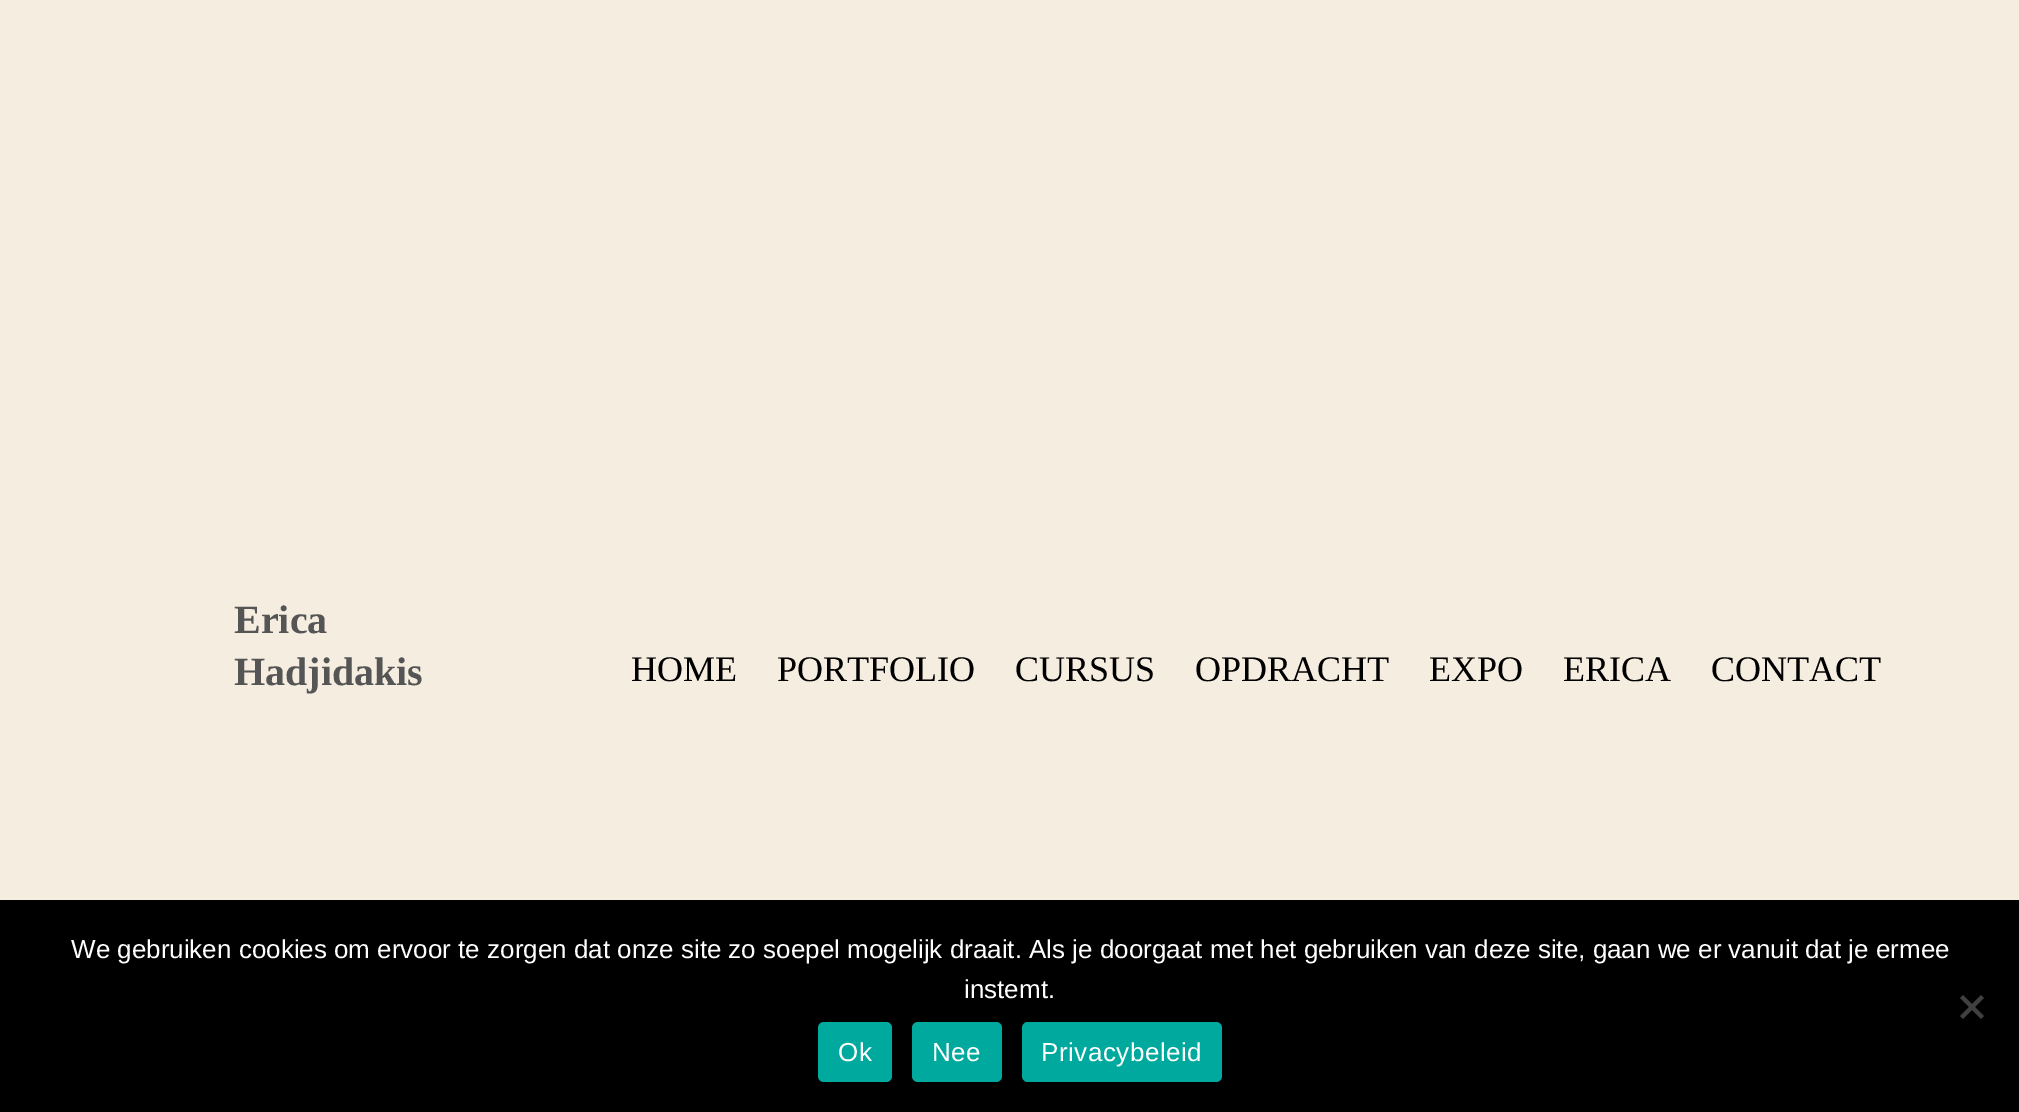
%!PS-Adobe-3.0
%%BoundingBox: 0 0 2019 1112
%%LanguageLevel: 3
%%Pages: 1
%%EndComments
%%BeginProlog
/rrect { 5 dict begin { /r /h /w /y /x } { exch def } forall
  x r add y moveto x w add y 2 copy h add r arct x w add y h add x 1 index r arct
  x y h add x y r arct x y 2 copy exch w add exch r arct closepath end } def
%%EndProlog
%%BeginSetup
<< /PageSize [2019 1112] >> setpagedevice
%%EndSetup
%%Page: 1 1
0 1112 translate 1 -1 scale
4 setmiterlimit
0.961 0.929 0.878 setrgbcolor
0 0 2019 1112 rectfill
0 setgray
0 900 2019 212 rectfill
0.251 setgray
newpath 1981 995 moveto 1984 998 lineto 1963 1019 lineto 1960 1016 lineto closepath fill
newpath 1960 998 moveto 1963 995 lineto 1984 1016 lineto 1981 1019 lineto closepath fill
0 0.663 0.616 setrgbcolor
818 1022 74 60 6 rrect fill
912 1022 90 60 6 rrect fill
1022 1022 200 60 6 rrect fill
/LiberationSerif-Bold [40 0 0 -40 0 0] selectfont
0.333 setgray
234 633 moveto (Erica) show
234 685 moveto (Hadjidakis) show
/LiberationSerif-Regular [36 0 0 -36 0 0] selectfont
0 setgray
631 681 moveto (HOME) show
777 681 moveto (PORTFOLIO) show
1015 681 moveto (CURSUS) show
1195 681 moveto (OPDRACHT) show
1429 681 moveto (EXPO) show
1563 681 moveto (ERICA) show
1711 681 moveto (CONTACT) show
/LiberationSans-Regular [26 0 0 -26 0 0] selectfont
1 setgray
71 958 moveto (We gebruiken cookies om ervoor te zorgen dat onze site zo soepel mogelijk draait. Als je doorgaat met het gebruiken van deze site, gaan we er vanuit dat je ermee) show
964 998 moveto (instemt.) show
838 1061 moveto 0.5 0 (Ok) ashow
932 1061 moveto 0.5 0 (Nee) ashow
1041 1061 moveto 0.5 0 (Privacybeleid) ashow
showpage
%%EOF
